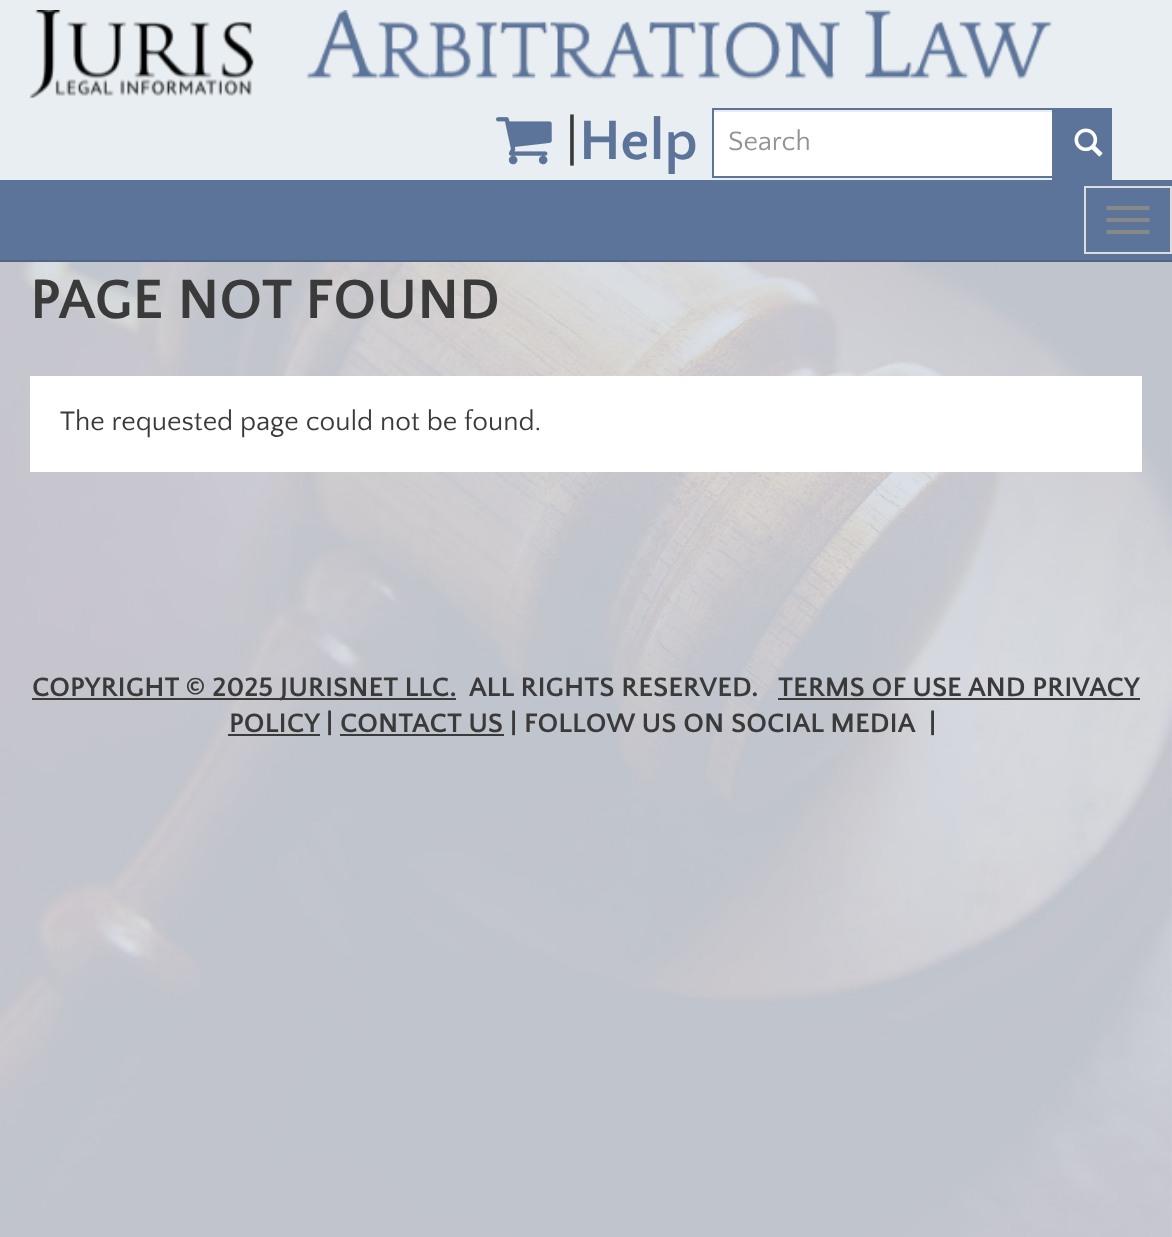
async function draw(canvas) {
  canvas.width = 1172
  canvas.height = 1237
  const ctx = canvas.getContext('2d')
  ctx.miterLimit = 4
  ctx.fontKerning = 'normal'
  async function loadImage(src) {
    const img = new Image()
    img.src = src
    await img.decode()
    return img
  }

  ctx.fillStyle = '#fff'
  ctx.fillRect(0, 0, 1172, 1237)
  ctx.drawImage(await loadImage('image0.png'), 0, 262, 1172, 975)
  ctx.fillStyle = '#e9eef2'
  ctx.fillRect(0, 0, 1172, 180)
  ctx.drawImage(await loadImage('image1.png'), 30, 10, 1022, 88)
  ctx.drawImage(await loadImage('image2.png'), 496, 117, 56, 48)
  ctx.font = '58px Quattrocento Sans'
  ctx.fillStyle = '#3a3a3a'
  ctx.fillText('|', 565, 159)
  ctx.font = 'bold 58px Quattrocento Sans'
  ctx.fillStyle = '#5c7499'
  ctx.fillText('Help', 579, 159)
  ctx.fillStyle = '#fff'
  ctx.fillRect(714, 112, 338, 64)
  ctx.fillStyle = '#ececec'
  ctx.fillRect(714, 110, 338, 2)
  ctx.fillStyle = '#5c7499'
  ctx.fillRect(1052, 108, 60, 72)
  ctx.strokeStyle = '#5c7499'
  ctx.lineWidth = 2
  ctx.strokeRect(713, 109, 340, 68)
  ctx.font = '28px Quattrocento Sans'
  ctx.fillStyle = '#939393'
  ctx.fillText('Search', 728, 150)
  ctx.drawImage(await loadImage('image3.png'), 1074, 128, 29, 29)
  ctx.fillStyle = '#5c7499'
  ctx.fillRect(0, 180, 1172, 80)
  ctx.fillStyle = '#506484'
  ctx.fillRect(0, 260, 1172, 2)
  ctx.strokeStyle = '#ddd'
  ctx.strokeRect(1085, 187, 86, 66)
  ctx.fillStyle = '#888'
  ctx.beginPath()
  ctx.roundRect(1106, 206, 44, 4, 2)
  ctx.fill()
  ctx.beginPath()
  ctx.roundRect(1106, 218, 44, 4, 2)
  ctx.fill()
  ctx.beginPath()
  ctx.roundRect(1106, 230, 44, 4, 2)
  ctx.fill()
  ctx.font = 'bold 58px Quattrocento Sans'
  ctx.fillStyle = '#3a3a3a'
  ctx.fillText('PAGE NOT FOUND', 30, 318)
  ctx.fillStyle = '#fff'
  ctx.fillRect(30, 376, 1112, 96)
  ctx.font = '28px Quattrocento Sans'
  ctx.fillStyle = '#3a3a3a'
  ctx.fillText('The requested page could not be found.', 60, 430)
  ctx.fillRect(32, 698, 424, 2)
  ctx.font = 'bold 28px Quattrocento Sans'
  ctx.fillText('COPYRIGHT © 2025 JURISNET LLC.', 32, 696)
  ctx.fillText('ALL RIGHTS RESERVED.', 469, 696)
  ctx.fillText('TERMS OF USE AND PRIVACY', 778, 696)
  ctx.fillRect(778, 698, 362, 2)
  ctx.fillText('POLICY', 229, 732)
  ctx.fillRect(228, 734, 92, 2)
  ctx.fillText('| CONTACT US | FOLLOW US ON SOCIAL MEDIA', 326, 732)
  ctx.fillText('|', 929, 732)
  ctx.fillRect(340, 734, 164, 2)
}

draw(document.querySelector('canvas'))
